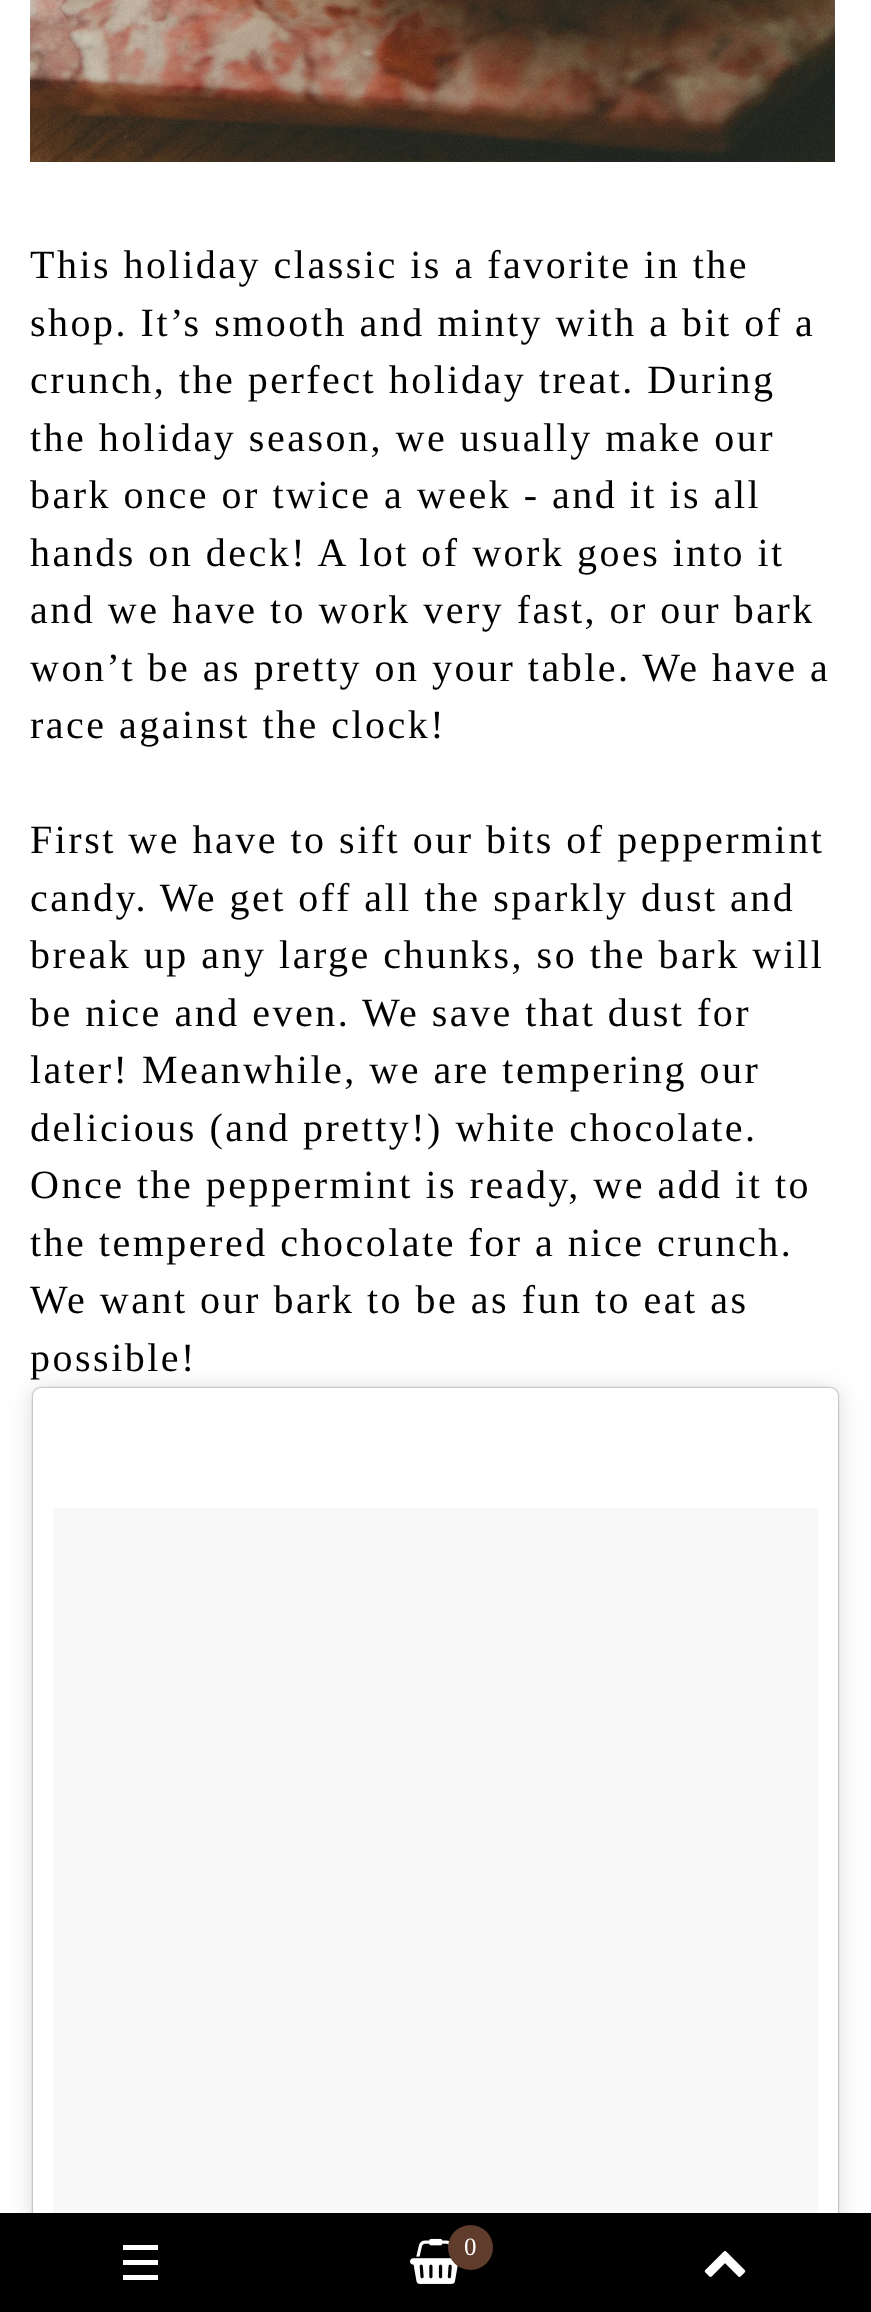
async function draw(canvas) {
  canvas.width = 871
  canvas.height = 2312
  const ctx = canvas.getContext('2d')
  ctx.miterLimit = 4
  ctx.fontKerning = 'normal'
  async function loadImage(src) {
    const img = new Image()
    img.src = src
    await img.decode()
    return img
  }

  ctx.fillStyle = '#fff'
  ctx.fillRect(0, 0, 871, 2312)
  ctx.drawImage(await loadImage('image0.png'), 30, 0, 805, 162)
  ctx.letterSpacing = '2.5px'
  ctx.font = '40px Liberation Serif'
  ctx.fillStyle = '#000'
  ctx.fillText('This holiday classic is a favorite in the', 30, 278)
  ctx.fillText('shop. It’s smooth and minty with a bit of a', 30, 336)
  ctx.fillText('crunch, the perfect holiday treat. During', 30, 393)
  ctx.fillText('the holiday season, we usually make our', 30, 451)
  ctx.fillText('bark once or twice a week - and it is all', 30, 508)
  ctx.fillText('hands on deck! A lot of work goes into it', 30, 566)
  ctx.fillText('and we have to work very fast, or our bark', 30, 623)
  ctx.fillText('won’t be as pretty on your table. We have a', 30, 681)
  ctx.fillText('race against the clock!', 30, 738)
  ctx.fillText('First we have to sift our bits of peppermint', 30, 853)
  ctx.fillText('candy. We get off all the sparkly dust and', 30, 911)
  ctx.fillText('break up any large chunks, so the bark will', 30, 968)
  ctx.fillText('be nice and even. We save that dust for', 30, 1026)
  ctx.fillText('later! Meanwhile, we are tempering our', 30, 1083)
  ctx.fillText('delicious (and pretty!) white chocolate.', 30, 1141)
  ctx.fillText('Once the peppermint is ready, we add it to', 30, 1198)
  ctx.fillText('the tempered chocolate for a nice crunch.', 30, 1256)
  ctx.fillText('We want our bark to be as fun to eat as', 30, 1313)
  ctx.fillStyle = '#00000026'
  ctx.filter = 'blur(12.5px)'
  ctx.beginPath()
  ctx.roundRect(33, 1390, 805, 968, 8)
  ctx.fill()
  ctx.filter = 'none'
  ctx.fillStyle = '#000'
  ctx.fillText('possible!', 30, 1371)
  ctx.fillStyle = '#00000080'
  ctx.filter = 'blur(1px)'
  ctx.beginPath()
  ctx.roundRect(33, 1388, 805, 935, 8)
  ctx.fill()
  ctx.filter = 'none'
  ctx.fillStyle = '#fff'
  ctx.beginPath()
  ctx.roundRect(33, 1388, 805, 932, 8)
  ctx.fill()
  ctx.fillStyle = '#f8f8f8'
  ctx.fillRect(53, 1508, 765, 705)
  ctx.fillStyle = '#000'
  ctx.fillRect(0, 2213, 583, 99)
  ctx.fillStyle = '#fff'
  ctx.fillRect(123, 2260, 35, 5)
  ctx.fillRect(123, 2245, 35, 5)
  ctx.fillRect(123, 2275, 35, 5)
  ctx.fillStyle = '#000'
  ctx.fillRect(583, 2213, 288, 99)
  ctx.drawImage(await loadImage('image1.png'), 704, 2251, 42, 26)
  ctx.drawImage(await loadImage('image2.png'), 410, 2238, 48, 46)
  ctx.fillStyle = '#603c2c'
  ctx.beginPath()
  ctx.arc(470.5, 2247.5, 22.5, 0, 2 * Math.PI)
  ctx.fill()
  ctx.font = '25px Liberation Serif'
  ctx.fillStyle = '#fff'
  ctx.fillText('0', 464, 2255)
}

draw(document.querySelector('canvas'))
